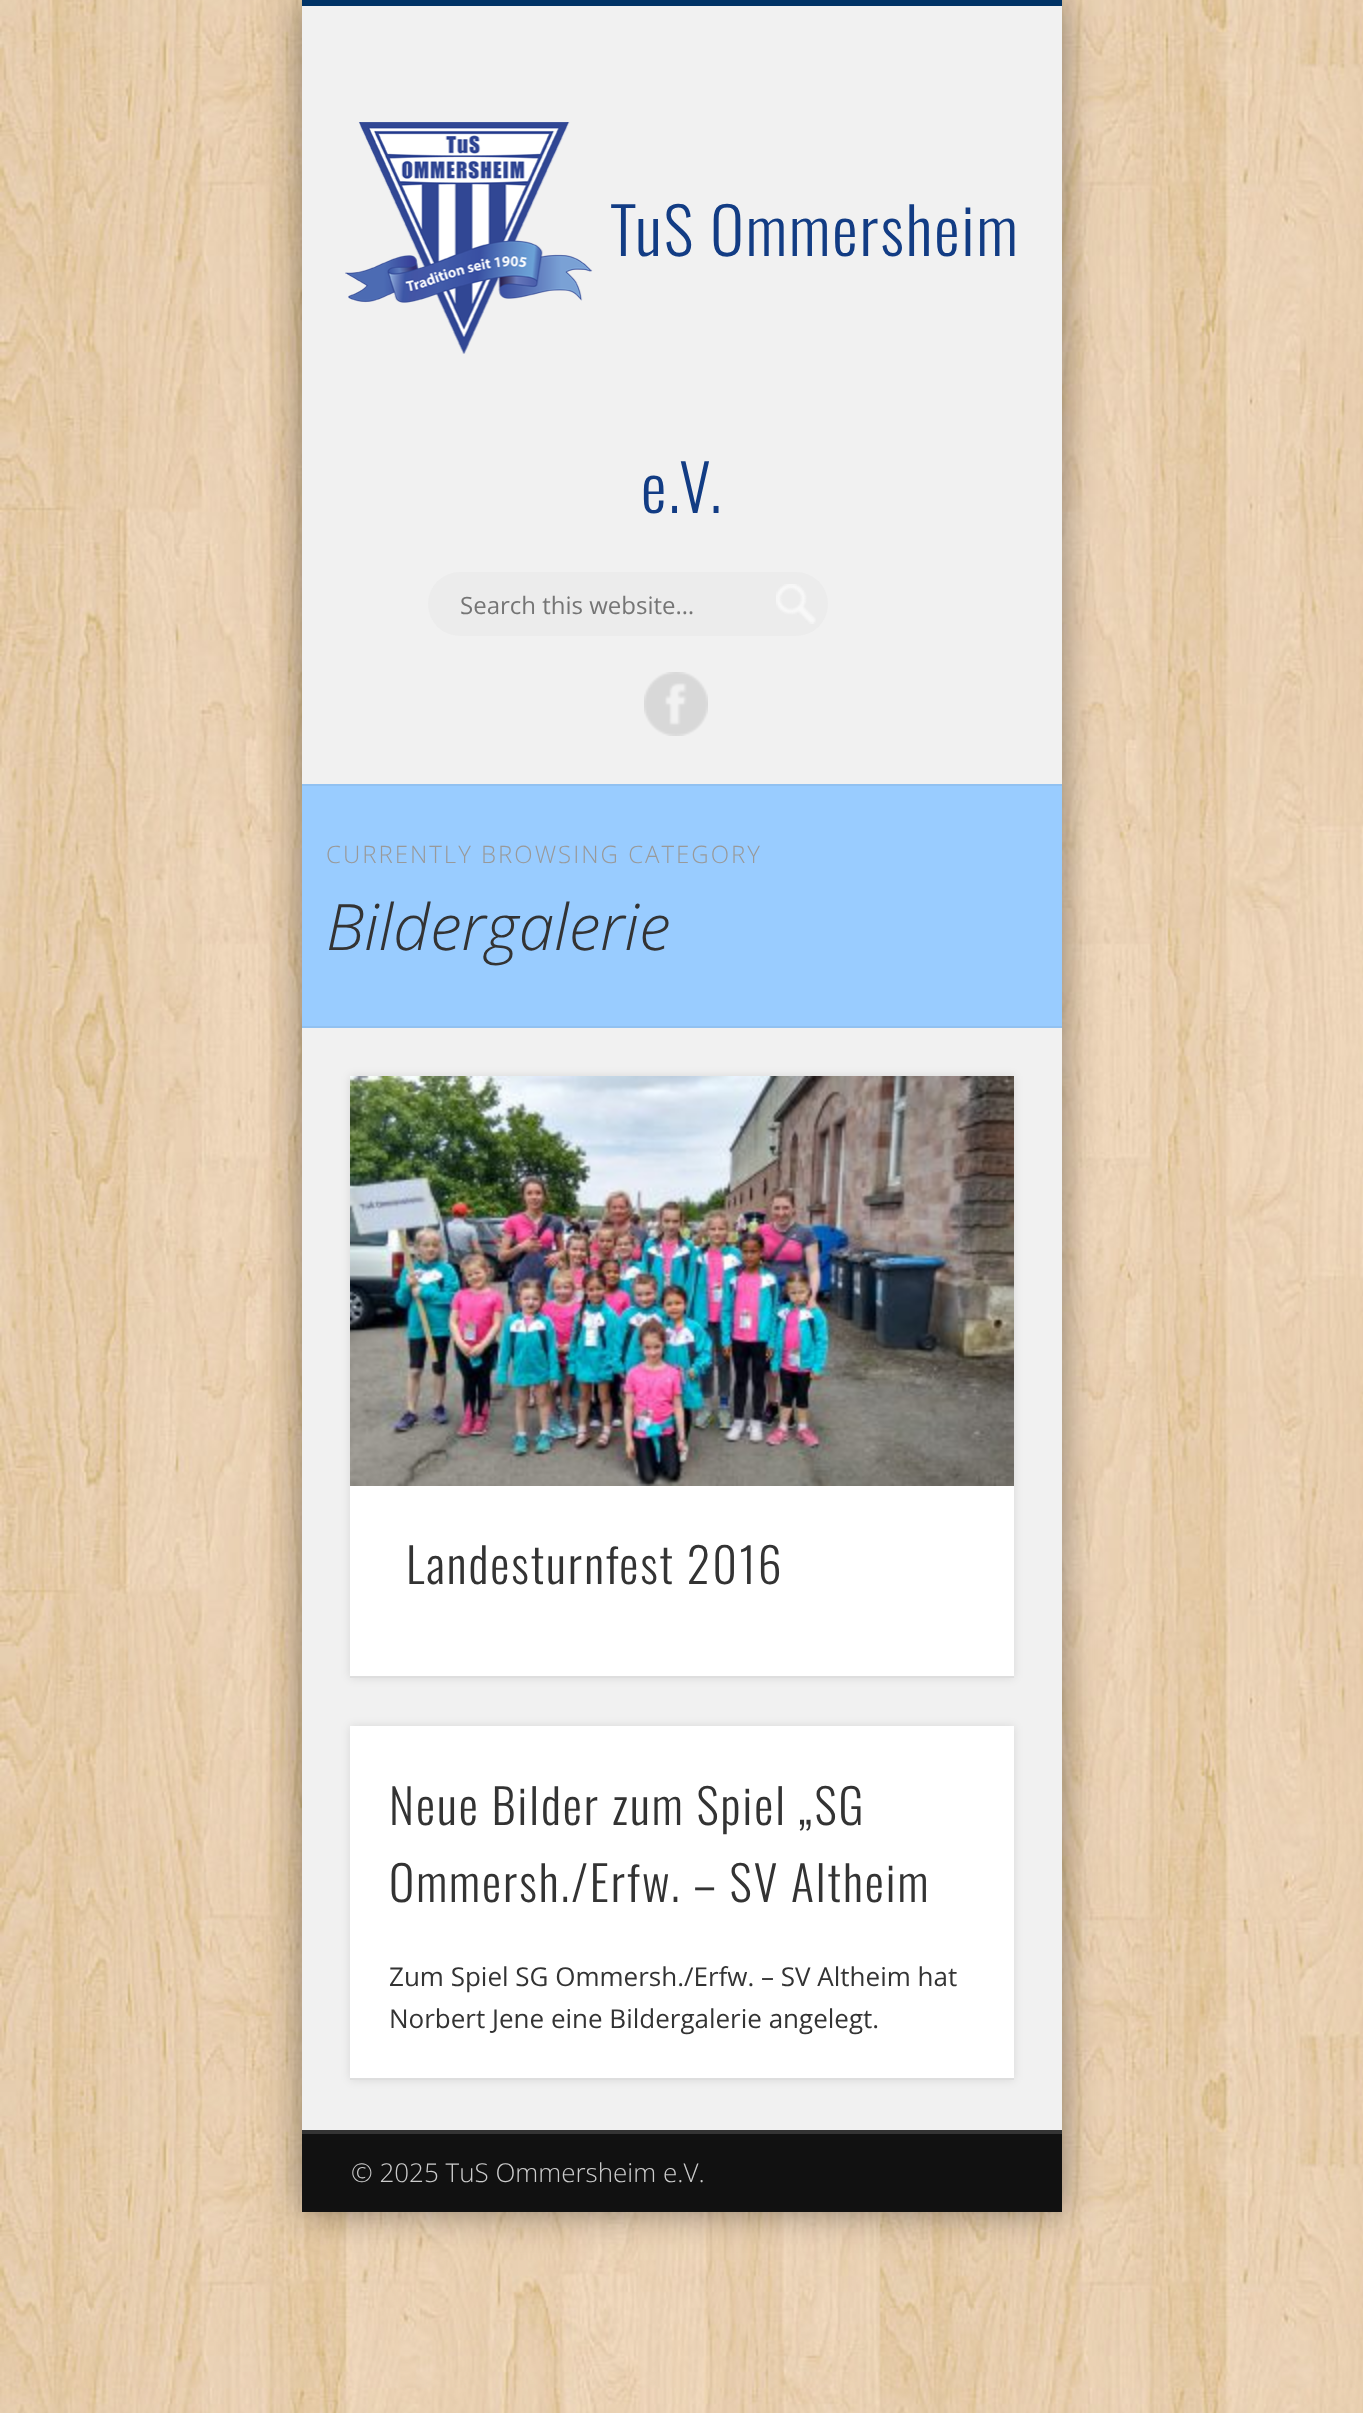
async function draw(canvas) {
  canvas.width = 1363
  canvas.height = 2413
  const ctx = canvas.getContext('2d')
  ctx.miterLimit = 4
  ctx.fontKerning = 'normal'
  async function loadImage(src) {
    const img = new Image()
    img.src = src
    await img.decode()
    return img
  }

  ctx.fillStyle = '#fff'
  ctx.fillRect(0, 0, 1363, 2413)
  ctx.drawImage(await loadImage('image0.png'), 0, 0, 1363, 2413)
  ctx.fillStyle = '#00000066'
  ctx.filter = 'blur(18px)'
  ctx.beginPath()
  ctx.rect(302, 0, 760, 2212)
  ctx.fill()
  ctx.filter = 'none'
  ctx.fillStyle = '#f1f1f1'
  ctx.fillRect(302, 6, 760, 2124)
  ctx.fillStyle = '#036'
  ctx.fillRect(302, 0, 760, 6)
  ctx.drawImage(await loadImage('image1.png'), 345, 122, 248, 232)
  ctx.letterSpacing = '2px'
  ctx.font = '300 64px Oswald'
  ctx.fillStyle = '#123c84'
  ctx.fillText('TuS Ommersheim', 610, 256)
  ctx.fillText('e.V.', 641, 513)
  ctx.fillStyle = '#ececec'
  ctx.beginPath()
  ctx.roundRect(428, 572, 400, 64, 32)
  ctx.fill()
  ctx.drawImage(await loadImage('image2.png'), 776, 584, 40, 40)
  ctx.letterSpacing = '0px'
  ctx.font = '24px Open Sans'
  ctx.fillStyle = '#757575'
  ctx.fillText('Search this website…', 460, 614)
  ctx.drawImage(await loadImage('image3.png'), 644, 672, 64, 64)
  ctx.fillStyle = '#9cf'
  ctx.fillRect(302, 786, 760, 240)
  ctx.fillStyle = '#91c1f1'
  ctx.fillRect(302, 784, 760, 2)
  ctx.fillRect(302, 1026, 760, 2)
  ctx.letterSpacing = '2px'
  ctx.font = '300 24px Open Sans'
  ctx.fillStyle = '#999'
  ctx.fillText('CURRENTLY BROWSING CATEGORY', 326, 863)
  ctx.letterSpacing = '0px'
  ctx.font = 'italic 300 64px Open Sans'
  ctx.fillStyle = '#333'
  ctx.fillText('Bildergalerie', 326, 950)
  ctx.fillStyle = '#0000001a'
  ctx.filter = 'blur(5px)'
  ctx.beginPath()
  ctx.rect(350, 1076, 664, 602)
  ctx.fill()
  ctx.filter = 'none'
  ctx.fillStyle = '#fff'
  ctx.fillRect(350, 1486, 664, 190)
  ctx.fillStyle = '#dedede'
  ctx.fillRect(350, 1676, 664, 2)
  ctx.drawImage(await loadImage('image4.png'), 350, 1076, 664, 410)
  ctx.letterSpacing = '2px'
  ctx.font = '300 48px Oswald'
  ctx.fillStyle = '#333'
  ctx.fillText('Landesturnfest 2016', 406, 1584)
  ctx.fillStyle = '#0000001a'
  ctx.filter = 'blur(5px)'
  ctx.beginPath()
  ctx.rect(350, 1726, 664, 354)
  ctx.fill()
  ctx.filter = 'none'
  ctx.fillStyle = '#fff'
  ctx.fillRect(350, 1726, 664, 352)
  ctx.fillStyle = '#dedede'
  ctx.fillRect(350, 2078, 664, 2)
  ctx.fillStyle = '#333'
  ctx.fillText('Neue Bilder zum Spiel „SG', 389, 1825)
  ctx.fillText('Ommersh./Erfw. – SV Altheim', 389, 1902)
  ctx.letterSpacing = '0px'
  ctx.font = '26px Open Sans'
  ctx.fillText('Zum Spiel SG Ommersh./Erfw. – SV Altheim hat', 389, 1986)
  ctx.fillText('Norbert Jene eine Bildergalerie angelegt.', 389, 2028)
  ctx.fillRect(302, 2130, 760, 2)
  ctx.fillStyle = '#111'
  ctx.fillRect(302, 2134, 760, 78)
  ctx.fillStyle = '#343434'
  ctx.fillRect(302, 2132, 760, 2)
  ctx.font = '300 26px Open Sans'
  ctx.fillStyle = '#ccc'
  ctx.fillText('© 2025 TuS Ommersheim e.V.', 351, 2182)
}

draw(document.querySelector('canvas'))
